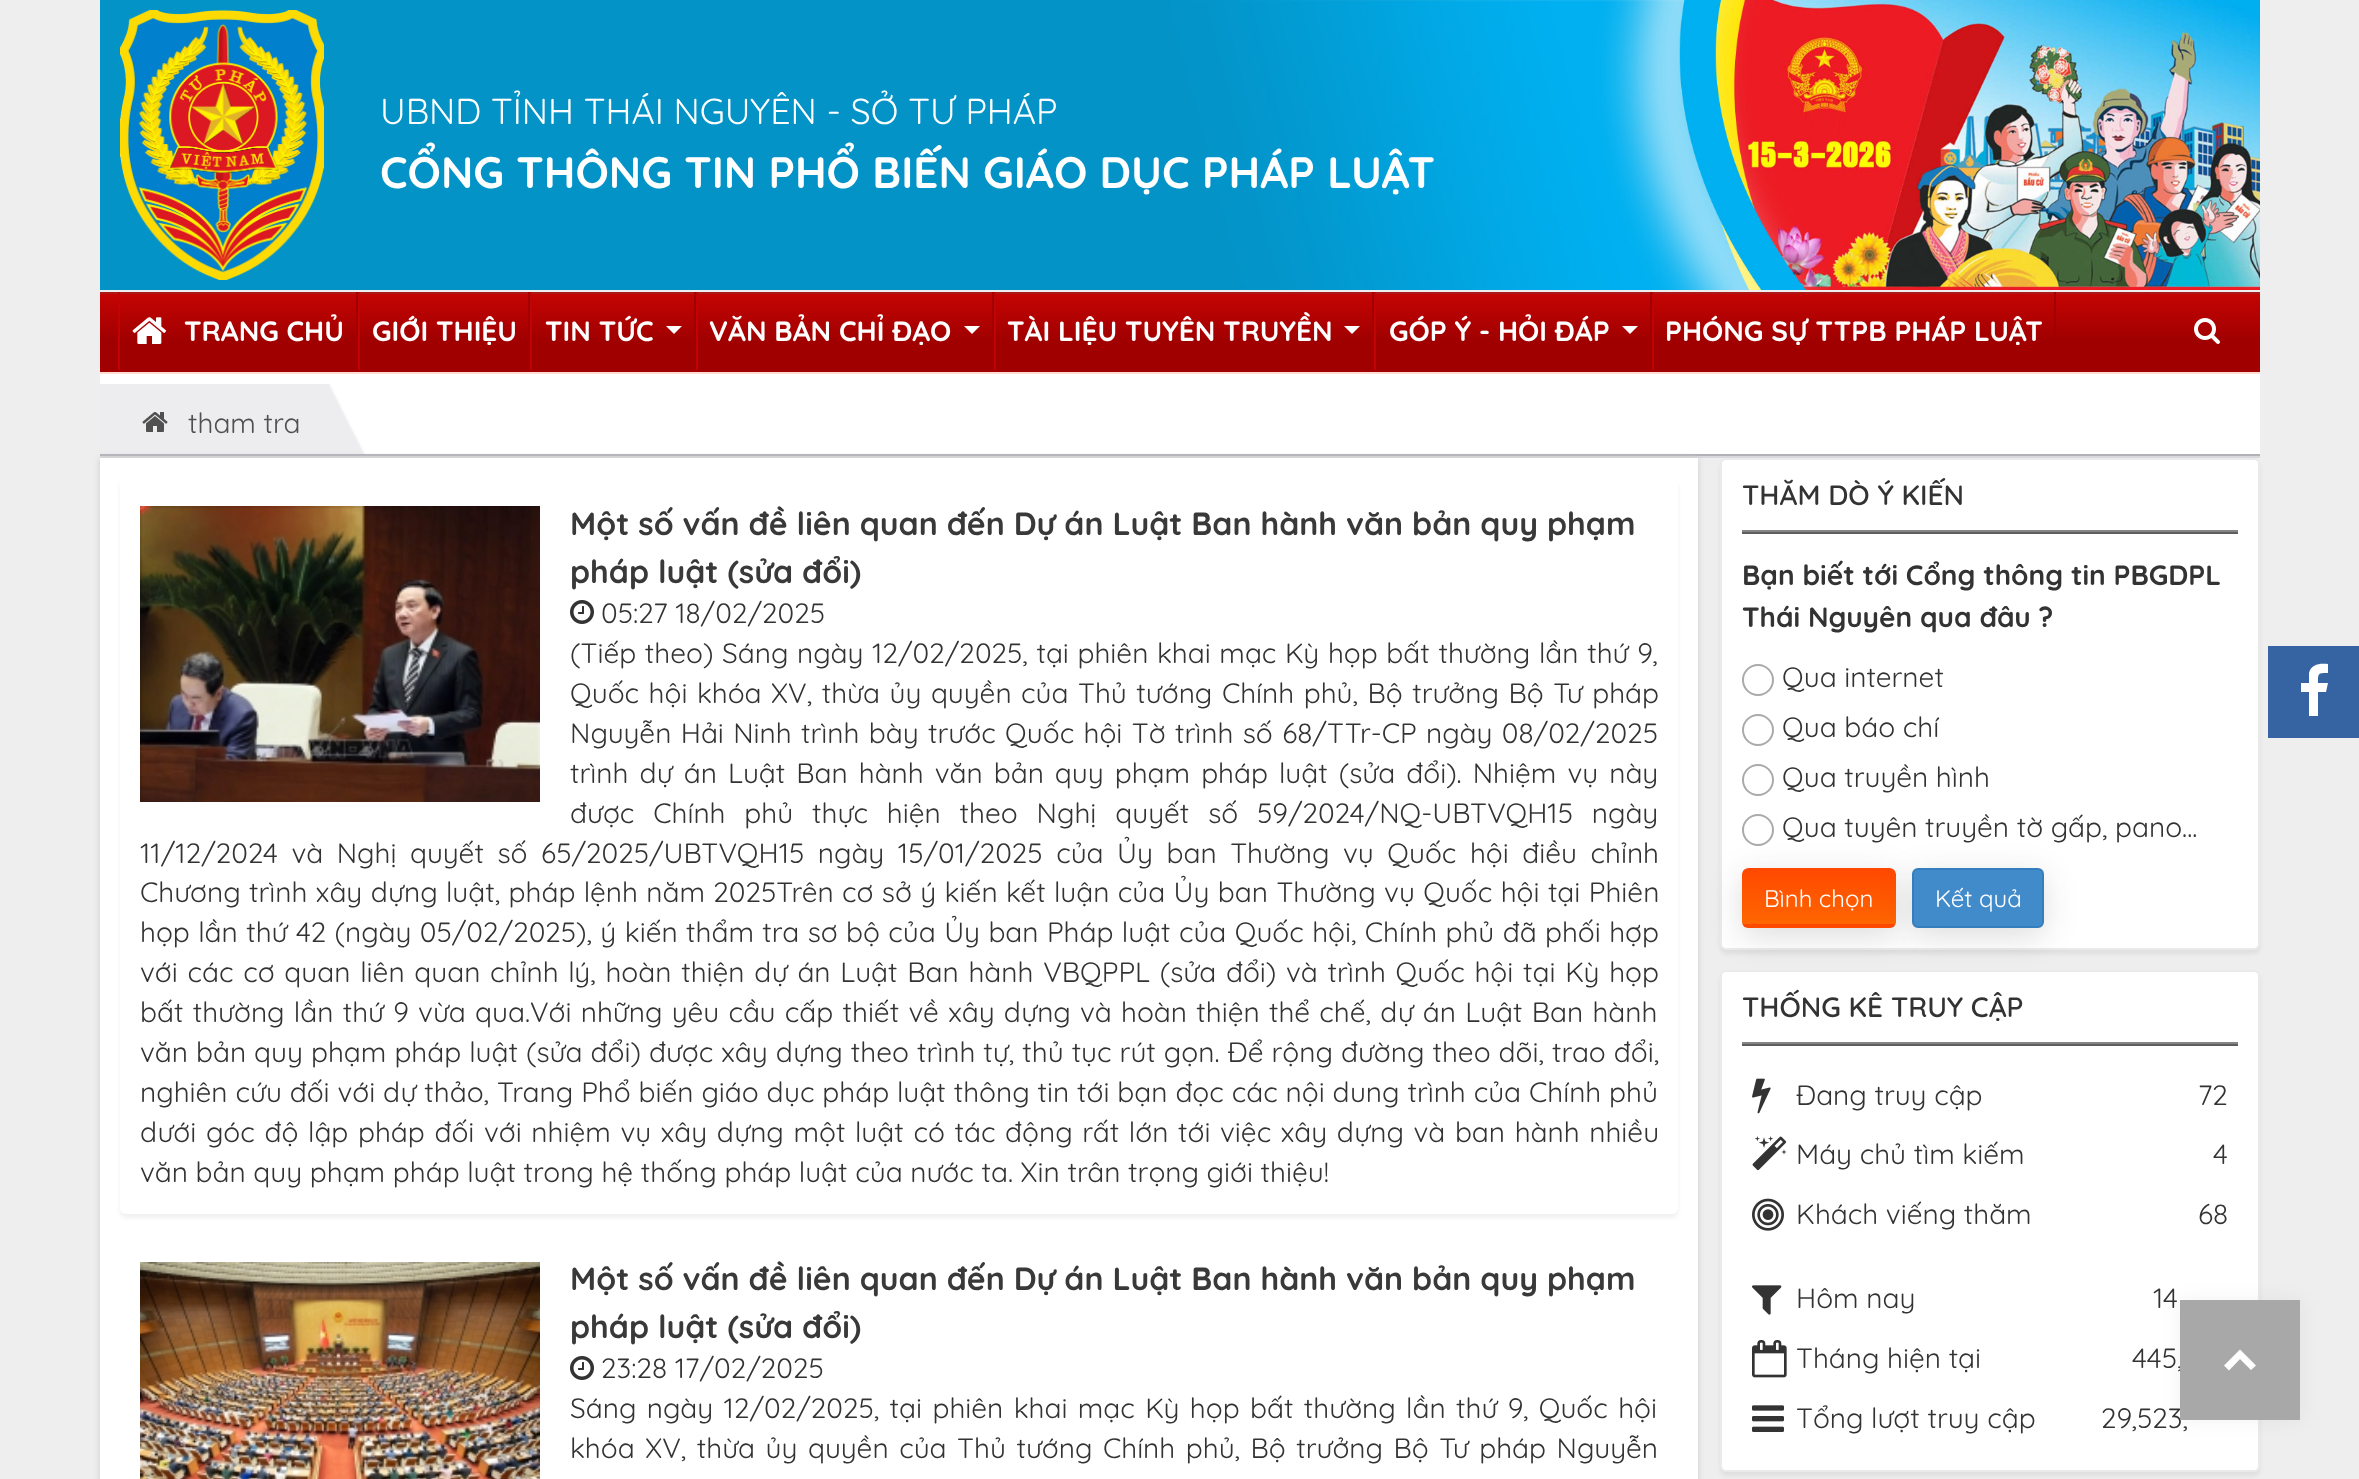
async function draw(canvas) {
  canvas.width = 2359
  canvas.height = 1479
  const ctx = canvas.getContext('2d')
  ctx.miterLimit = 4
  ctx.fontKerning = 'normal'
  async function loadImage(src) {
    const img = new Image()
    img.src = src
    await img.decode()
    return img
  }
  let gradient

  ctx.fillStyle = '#eee'
  ctx.fillRect(0, 0, 2359, 1479)
  ctx.drawImage(await loadImage('image0.png'), 100, 0, 2160, 290)
  ctx.drawImage(await loadImage('image1.png'), 120, 10, 204, 270)
  ctx.font = '36px Quicksand'
  ctx.fillStyle = '#fff'
  ctx.fillText('UBND TỈNH THÁI NGUYÊN - SỞ TƯ PHÁP', 380, 124)
  ctx.font = 'bold 44px Quicksand'
  ctx.fillText('CỔNG THÔNG TIN PHỔ BIẾN GIÁO DỤC PHÁP LUẬT', 380, 188)
  ctx.fillStyle = '#ffdcd2'
  ctx.fillRect(100, 372, 2160, 2)
  gradient = ctx.createLinearGradient(1180, 271, 1180, 372)
  gradient.addColorStop(0, '#d60605')
  gradient.addColorStop(0.69, '#a00000')
  ctx.fillStyle = gradient
  ctx.fillRect(100, 294, 2160, 78)
  ctx.fillStyle = '#aa1a1a'
  ctx.fillRect(100, 292, 2160, 2)
  ctx.fillStyle = '#a00000'
  ctx.fillRect(356, 292, 2, 45)
  ctx.fillStyle = '#c30202'
  ctx.fillRect(118, 292, 2, 78)
  ctx.drawImage(await loadImage('image2.png'), 132, 317, 35, 27)
  ctx.font = 'bold 28px Quicksand'
  ctx.fillStyle = '#fff'
  ctx.fillText('TRANG CHỦ', 184, 341)
  ctx.fillStyle = '#a00000'
  ctx.fillRect(528, 292, 2, 45)
  ctx.fillStyle = '#c30202'
  ctx.fillRect(358, 292, 2, 78)
  ctx.fillStyle = '#fff'
  ctx.fillText('GIỚI THIỆU', 372, 341)
  ctx.fillStyle = '#a00000'
  ctx.fillRect(694, 292, 2, 45)
  ctx.fillStyle = '#c30202'
  ctx.fillRect(530, 292, 2, 78)
  ctx.fillStyle = '#fff'
  ctx.fillText('TIN TỨC', 545, 341)
  ctx.beginPath()
  ctx.moveTo(666, 326)
  ctx.lineTo(682, 326)
  ctx.lineTo(674, 334)
  ctx.closePath()
  ctx.fill()
  ctx.fillStyle = '#a00000'
  ctx.fillRect(992, 292, 2, 45)
  ctx.fillStyle = '#c30202'
  ctx.fillRect(696, 292, 2, 78)
  ctx.fillStyle = '#fff'
  ctx.fillText('VĂN BẢN CHỈ ĐẠO', 709, 341)
  ctx.beginPath()
  ctx.moveTo(964, 326)
  ctx.lineTo(980, 326)
  ctx.lineTo(972, 334)
  ctx.closePath()
  ctx.fill()
  ctx.fillStyle = '#a00000'
  ctx.fillRect(1372, 292, 2, 45)
  ctx.fillStyle = '#c30202'
  ctx.fillRect(994, 292, 2, 78)
  ctx.fillStyle = '#fff'
  ctx.fillText('TÀI LIỆU TUYÊN TRUYỀN', 1007, 341)
  ctx.beginPath()
  ctx.moveTo(1344, 326)
  ctx.lineTo(1360, 326)
  ctx.lineTo(1352, 334)
  ctx.closePath()
  ctx.fill()
  ctx.fillStyle = '#a00000'
  ctx.fillRect(1650, 292, 2, 45)
  ctx.fillStyle = '#c30202'
  ctx.fillRect(1374, 292, 2, 78)
  ctx.fillStyle = '#fff'
  ctx.fillText('GÓP Ý - HỎI ĐÁP', 1389, 341)
  ctx.beginPath()
  ctx.moveTo(1622, 326)
  ctx.lineTo(1638, 326)
  ctx.lineTo(1630, 334)
  ctx.closePath()
  ctx.fill()
  ctx.fillStyle = '#a00000'
  ctx.fillRect(2054, 292, 2, 45)
  ctx.fillStyle = '#c30202'
  ctx.fillRect(1652, 292, 2, 78)
  ctx.fillStyle = '#fff'
  ctx.fillText('PHÓNG SỰ TTPB PHÁP LUẬT', 1665, 341)
  ctx.drawImage(await loadImage('image3.png'), 2194, 318, 26, 26)
  ctx.fillStyle = '#d9d9dd'
  ctx.fillRect(100, 456, 2160, 2)
  ctx.fillStyle = '#fff'
  ctx.fillRect(100, 374, 2160, 80)
  ctx.fillStyle = '#b1b1b8'
  ctx.fillRect(100, 454, 2160, 2)
  ctx.drawImage(await loadImage('image4.png'), 328, 384, 37, 70)
  ctx.fillStyle = '#ededef'
  ctx.fillRect(100, 384, 228, 70)
  ctx.drawImage(await loadImage('image5.png'), 142, 412, 26, 20)
  ctx.font = '28px Quicksand'
  ctx.fillStyle = '#515050'
  ctx.fillText('tham tra', 188, 433)
  ctx.fillStyle = '#ccc'
  ctx.filter = 'blur(3px)'
  ctx.beginPath()
  ctx.rect(100, 458, 1598, 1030)
  ctx.fill()
  ctx.filter = 'none'
  ctx.fillStyle = '#fff'
  ctx.fillRect(100, 458, 1598, 1021)
  ctx.fillStyle = '#0000000f'
  ctx.filter = 'blur(2px)'
  ctx.beginPath()
  ctx.roundRect(120, 482, 1558, 736, 6)
  ctx.fill()
  ctx.filter = 'none'
  ctx.fillStyle = '#fff'
  ctx.beginPath()
  ctx.roundRect(120, 478, 1558, 736, 6)
  ctx.fill()
  ctx.drawImage(await loadImage('image6.png'), 140, 506, 400, 296)
  ctx.font = 'bold 32px Quicksand'
  ctx.fillStyle = '#393939'
  ctx.fillText('Một số vấn đề liên quan đến Dự án Luật Ban hành văn bản quy phạm', 570, 535)
  ctx.fillText('pháp luật (sửa đổi)', 570, 583)
  ctx.drawImage(await loadImage('image7.png'), 570, 600, 24, 24)
  ctx.font = '28px Quicksand'
  ctx.fillStyle = '#333'
  ctx.fillText('05:27 18/02/2025', 601, 623)
  ctx.wordSpacing = '1px'
  ctx.fillText('(Tiếp theo) Sáng ngày 12/02/2025, tại phiên khai mạc Kỳ họp bất thường lần thứ 9,', 570, 663)
  ctx.wordSpacing = '1.9px'
  ctx.fillText('Quốc hội khóa XV, thừa ủy quyền của Thủ tướng Chính phủ, Bộ trưởng Bộ Tư pháp', 570, 703)
  ctx.wordSpacing = '1.75px'
  ctx.fillText('Nguyễn Hải Ninh trình bày trước Quốc hội Tờ trình số 68/TTr-CP ngày 08/02/2025', 570, 743)
  ctx.wordSpacing = '3.4px'
  ctx.fillText('trình dự án Luật Ban hành văn bản quy phạm pháp luật (sửa đổi). Nhiệm vụ này', 570, 783)
  ctx.wordSpacing = '11.25px'
  ctx.fillText('được Chính phủ thực hiện theo Nghị quyết số 59/2024/NQ-UBTVQH15 ngày', 570, 823)
  ctx.wordSpacing = '5.9px'
  ctx.fillText('11/12/2024 và Nghị quyết số 65/2025/UBTVQH15 ngày 15/01/2025 của Ủy ban Thường vụ Quốc hội điều chỉnh', 140, 863)
  ctx.wordSpacing = '0.75px'
  ctx.fillText('Chương trình xây dựng luật, pháp lệnh năm 2025Trên cơ sở ý kiến kết luận của Ủy ban Thường vụ Quốc hội tại Phiên', 140, 902)
  ctx.fillText('họp lần thứ 42 (ngày 05/02/2025), ý kiến thẩm tra sơ bộ của Ủy ban Pháp luật của Quốc hội, Chính phủ đã phối hợp', 140, 942)
  ctx.wordSpacing = '2.1px'
  ctx.fillText('với các cơ quan liên quan chỉnh lý, hoàn thiện dự án Luật Ban hành VBQPPL (sửa đổi) và trình Quốc hội tại Kỳ họp', 140, 982)
  ctx.wordSpacing = '1.6px'
  ctx.fillText('bất thường lần thứ 9 vừa qua.Với những yêu cầu cấp thiết về xây dựng và hoàn thiện thể chế, dự án Luật Ban hành', 140, 1022)
  ctx.wordSpacing = '0.4px'
  ctx.fillText('văn bản quy phạm pháp luật (sửa đổi) được xây dựng theo trình tự, thủ tục rút gọn. Để rộng đường theo dõi, trao đổi,', 140, 1062)
  ctx.wordSpacing = '0.25px'
  ctx.fillText('nghiên cứu đối với dự thảo, Trang Phổ biến giáo dục pháp luật thông tin tới bạn đọc các nội dung trình của Chính phủ', 140, 1102)
  ctx.wordSpacing = '2px'
  ctx.fillText('dưới góc độ lập pháp đối với nhiệm vụ xây dựng một luật có tác động rất lớn tới việc xây dựng và ban hành nhiều', 140, 1142)
  ctx.wordSpacing = '0px'
  ctx.fillText('văn bản quy phạm pháp luật trong hệ thống pháp luật của nước ta. Xin trân trọng giới thiệu!', 140, 1182)
  ctx.drawImage(await loadImage('image8.png'), 140, 1262, 400, 217)
  ctx.font = 'bold 32px Quicksand'
  ctx.fillStyle = '#393939'
  ctx.fillText('Một số vấn đề liên quan đến Dự án Luật Ban hành văn bản quy phạm', 570, 1290)
  ctx.fillText('pháp luật (sửa đổi)', 570, 1338)
  ctx.drawImage(await loadImage('image7.png'), 570, 1356, 24, 24)
  ctx.font = '28px Quicksand'
  ctx.fillStyle = '#333'
  ctx.fillText('23:28 17/02/2025', 601, 1378)
  ctx.wordSpacing = '2.75px'
  ctx.fillText('Sáng ngày 12/02/2025, tại phiên khai mạc Kỳ họp bất thường lần thứ 9, Quốc hội', 570, 1418)
  ctx.wordSpacing = '2.9px'
  ctx.fillText('khóa XV, thừa ủy quyền của Thủ tướng Chính phủ, Bộ trưởng Bộ Tư pháp Nguyễn', 570, 1458)
  ctx.fillStyle = '#0000000f'
  ctx.filter = 'blur(2px)'
  ctx.beginPath()
  ctx.roundRect(1720, 462, 540, 492, 6)
  ctx.fill()
  ctx.filter = 'none'
  ctx.fillStyle = '#fff'
  ctx.beginPath()
  ctx.roundRect(1721, 459, 538, 490, 5)
  ctx.fill()
  ctx.strokeStyle = '#eaeaea'
  ctx.lineWidth = 2
  ctx.stroke()
  ctx.fillStyle = '#5e5e5d'
  ctx.fillRect(1742, 532, 496, 2)
  ctx.fillStyle = '#868686'
  ctx.fillRect(1742, 530, 496, 2)
  ctx.wordSpacing = '0px'
  ctx.font = '600 28px Quicksand'
  ctx.fillStyle = '#333'
  ctx.fillText('THĂM DÒ Ý KIẾN', 1742, 505)
  ctx.font = 'bold 28px Quicksand'
  ctx.fillText('Bạn biết tới Cổng thông tin PBGDPL', 1742, 585)
  ctx.fillText('Thái Nguyên qua đâu ?', 1742, 627)
  ctx.beginPath()
  ctx.arc(1758, 680, 15, 0, 2 * Math.PI)
  ctx.strokeStyle = '#aaa'
  ctx.stroke()
  ctx.font = '28px Quicksand'
  ctx.fillText('Qua internet', 1782, 687)
  ctx.beginPath()
  ctx.arc(1758, 730, 15, 0, 2 * Math.PI)
  ctx.stroke()
  ctx.fillText('Qua báo chí', 1782, 737)
  ctx.beginPath()
  ctx.arc(1758, 780, 15, 0, 2 * Math.PI)
  ctx.stroke()
  ctx.fillText('Qua truyền hình', 1782, 787)
  ctx.beginPath()
  ctx.arc(1758, 830, 15, 0, 2 * Math.PI)
  ctx.stroke()
  ctx.fillText('Qua tuyên truyền tờ gấp, pano...', 1782, 837)
  ctx.fillStyle = '#0000000f'
  ctx.filter = 'blur(2px)'
  ctx.beginPath()
  ctx.roundRect(1720, 974, 540, 502, 6)
  ctx.fill()
  ctx.filter = 'none'
  ctx.fillStyle = '#fff'
  ctx.beginPath()
  ctx.roundRect(1721, 971, 538, 500, 5)
  ctx.fill()
  ctx.strokeStyle = '#eaeaea'
  ctx.stroke()
  ctx.fillStyle = '#1c1c2126'
  ctx.filter = 'blur(16px)'
  ctx.beginPath()
  ctx.roundRect(1742, 876, 154, 60, 6)
  ctx.fill()
  ctx.filter = 'none'
  ctx.save()
  ctx.beginPath()
  ctx.roundRect(1742, 868, 154, 60, 6)
  ctx.clip()
  gradient = ctx.createLinearGradient(1819, 868, 1819, 924)
  gradient.addColorStop(0, '#ff4800')
  gradient.addColorStop(1, '#f60')
  ctx.fillStyle = gradient
  ctx.beginPath()
  ctx.roundRect(1742, 868, 154, 56, [6, 6, 0, 0])
  ctx.fill()
  gradient = ctx.createLinearGradient(1819, 924, 1819, 980)
  gradient.addColorStop(0, '#ff4800')
  gradient.addColorStop(1, '#f60')
  ctx.fillStyle = gradient
  ctx.fillRect(1742, 924, 154, 4)
  ctx.restore()
  ctx.font = '24px Quicksand'
  ctx.fillStyle = '#fff'
  ctx.fillText('Bình chọn', 1764, 907)
  ctx.fillStyle = '#1c1c2126'
  ctx.filter = 'blur(16px)'
  ctx.beginPath()
  ctx.roundRect(1912, 876, 132, 60, 6)
  ctx.fill()
  ctx.filter = 'none'
  ctx.fillStyle = '#428bca'
  ctx.beginPath()
  ctx.roundRect(1913, 869, 130, 58, 5)
  ctx.fill()
  ctx.strokeStyle = '#357ebd'
  ctx.stroke()
  ctx.fillStyle = '#fff'
  ctx.fillText('Kết quả', 1935, 907)
  ctx.fillStyle = '#5e5e5d'
  ctx.fillRect(1742, 1044, 496, 2)
  ctx.fillStyle = '#868686'
  ctx.fillRect(1742, 1042, 496, 2)
  ctx.font = '600 28px Quicksand'
  ctx.fillStyle = '#333'
  ctx.fillText('THỐNG KÊ TRUY CẬP', 1742, 1017)
  ctx.drawImage(await loadImage('image9.png'), 1752, 1078, 19, 36)
  ctx.font = '28px Quicksand'
  ctx.fillText('Đang truy cập', 1796, 1105)
  ctx.fillText('72', 2198, 1105)
  ctx.drawImage(await loadImage('image10.png'), 1752, 1136, 35, 35)
  ctx.fillText('Máy chủ tìm kiếm', 1796, 1164)
  ctx.fillText('4', 2213, 1164)
  ctx.drawImage(await loadImage('image11.png'), 1752, 1198, 32, 33)
  ctx.fillText('Khách viếng thăm', 1796, 1224)
  ctx.fillText('68', 2198, 1224)
  ctx.drawImage(await loadImage('image12.png'), 1752, 1285, 30, 30)
  ctx.fillText('Hôm nay', 1796, 1308)
  ctx.fillText('14', 2153, 1308)
  ctx.drawImage(await loadImage('image13.png'), 1752, 1340, 35, 38)
  ctx.fillText('Tháng hiện tại', 1796, 1368)
  ctx.fillText('445,', 2132, 1368)
  ctx.drawImage(await loadImage('image14.png'), 1752, 1405, 32, 27)
  ctx.fillText('Tổng lượt truy cập', 1796, 1428)
  ctx.fillText('29,523,', 2101, 1428)
  ctx.fillStyle = '#0000000d'
  ctx.filter = 'blur(10px)'
  ctx.beginPath()
  ctx.rect(2180, 1300, 120, 120)
  ctx.fill()
  ctx.filter = 'none'
  ctx.fillStyle = '#a8a8a8'
  ctx.fillRect(2180, 1300, 120, 120)
  ctx.fillStyle = '#fff'
  ctx.beginPath()
  ctx.moveTo(2240, 1349.5)
  ctx.lineTo(2256, 1365.5)
  ctx.lineTo(2251, 1370)
  ctx.lineTo(2240, 1359)
  ctx.lineTo(2229, 1370.5)
  ctx.lineTo(2224, 1365.5)
  ctx.closePath()
  ctx.fill()
  ctx.fillStyle = '#3664a2'
  ctx.fillRect(2268, 646, 91, 92)
  ctx.fillStyle = '#fff'
  ctx.beginPath()
  ctx.moveTo(2328, 664)
  ctx.lineTo(2328, 673)
  ctx.bezierCurveTo(2318, 673, 2318, 673, 2318, 683)
  ctx.lineTo(2328, 683)
  ctx.lineTo(2326, 692)
  ctx.lineTo(2318, 692)
  ctx.lineTo(2318, 716)
  ctx.lineTo(2309, 716)
  ctx.lineTo(2309, 692)
  ctx.lineTo(2301, 692)
  ctx.lineTo(2301, 683)
  ctx.lineTo(2309, 683)
  ctx.lineTo(2309, 673)
  ctx.bezierCurveTo(2311, 664, 2320, 663, 2328, 664)
  ctx.closePath()
  ctx.fill()
}

draw(document.querySelector('canvas'))
